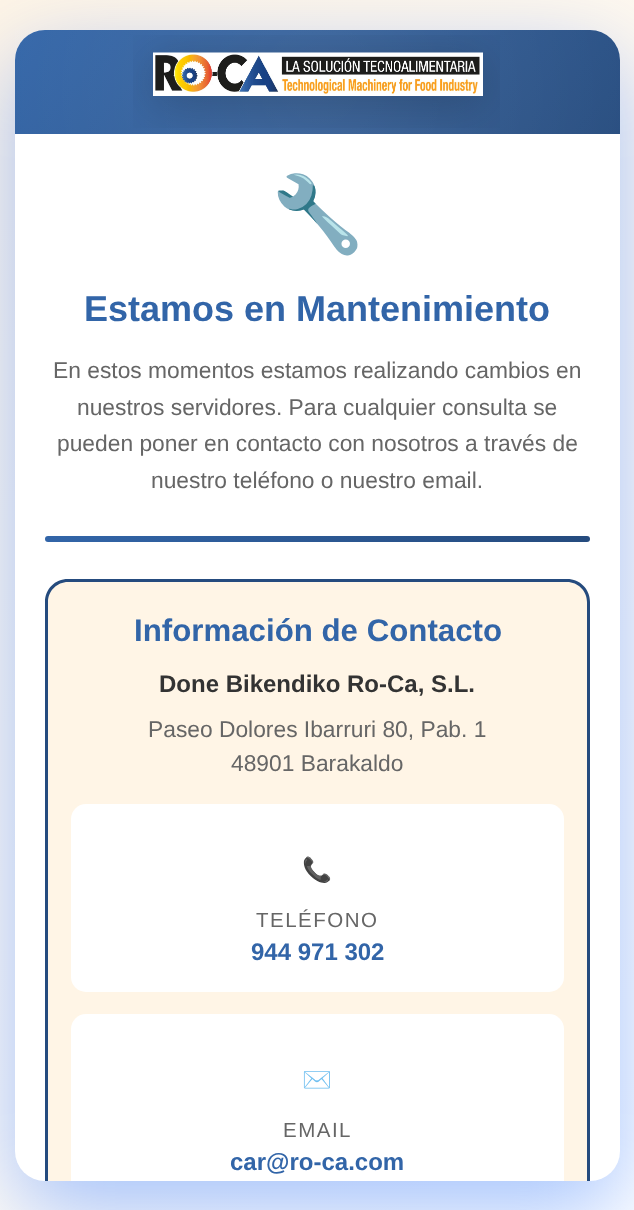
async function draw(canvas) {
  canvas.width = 634
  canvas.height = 1210
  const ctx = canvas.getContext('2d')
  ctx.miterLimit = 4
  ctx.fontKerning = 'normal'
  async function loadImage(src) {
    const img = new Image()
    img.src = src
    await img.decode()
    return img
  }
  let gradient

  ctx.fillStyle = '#fff'
  ctx.fillRect(0, 0, 634, 1210)
  gradient = ctx.createLinearGradient(-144, 144, 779, 1067)
  gradient.addColorStop(0, '#fff5e6')
  gradient.addColorStop(1, '#fff')
  ctx.fillStyle = gradient
  ctx.fillRect(0, 0, 634, 1210)
  ctx.fillStyle = '#0059ff5c'
  ctx.filter = 'blur(45px)'
  ctx.beginPath()
  ctx.roundRect(15, 60, 605, 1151, 30)
  ctx.fill()
  ctx.filter = 'none'
  ctx.fillStyle = '#fff'
  ctx.beginPath()
  ctx.roundRect(15, 30, 605, 1151, 30)
  ctx.fill()
  gradient = ctx.createLinearGradient(140, -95, 494, 259)
  gradient.addColorStop(0, '#3265a8')
  gradient.addColorStop(1, '#254b7e')
  ctx.fillStyle = gradient
  ctx.beginPath()
  ctx.roundRect(15, 30, 605, 104, [30, 30, 0, 0])
  ctx.fill()
  gradient = ctx.createRadialGradient(318, 83, 0, 318, 83, 613)
  gradient.addColorStop(0, '#ffffff1a')
  gradient.addColorStop(0.7, '#ffffff00')
  ctx.fillStyle = gradient
  ctx.fillRect(15, 30, 605, 104)
  ctx.drawImage(await loadImage('image0.png'), 133, 35, 367, 93)
  ctx.font = '75px Noto Color Emoji'
  ctx.fillStyle = '#333'
  ctx.fillText('🔧', 271, 240)
  ctx.font = 'bold 36px Liberation Sans'
  ctx.fillStyle = '#3265a8'
  ctx.fillText('Estamos en Mantenimiento', 84, 321)
  ctx.font = '22.8px Liberation Sans'
  ctx.fillStyle = '#666'
  ctx.fillText('En estos momentos estamos realizando cambios en', 53, 378)
  ctx.fillText('nuestros servidores. Para cualquier consulta se', 77, 415)
  ctx.fillText('pueden poner en contacto con nosotros a través de', 57, 451)
  ctx.fillText('nuestro teléfono o nuestro email.', 151, 488)
  gradient = ctx.createLinearGradient(45, 539, 590, 539)
  gradient.addColorStop(0, '#3265a8')
  gradient.addColorStop(1, '#254b7e')
  ctx.fillStyle = gradient
  ctx.beginPath()
  ctx.roundRect(45, 536, 545, 6, 3)
  ctx.fill()
  ctx.fillStyle = '#fff5e6'
  ctx.beginPath()
  ctx.roundRect(45, 579, 545, 602, [23, 23, 0, 0])
  ctx.fill()
  ctx.fillStyle = '#254b7e'
  ctx.beginPath()
  ctx.moveTo(68, 579)
  ctx.bezierCurveTo(55, 579, 45, 589, 45, 602)
  ctx.lineTo(45, 1181)
  ctx.lineTo(48, 1181)
  ctx.lineTo(48, 602)
  ctx.bezierCurveTo(48, 591, 57, 582, 68, 582)
  ctx.lineTo(567, 582)
  ctx.bezierCurveTo(578, 582, 587, 591, 587, 602)
  ctx.lineTo(587, 1181)
  ctx.lineTo(590, 1181)
  ctx.lineTo(590, 602)
  ctx.bezierCurveTo(590, 589, 580, 579, 567, 579)
  ctx.closePath()
  ctx.fill()
  ctx.font = 'bold 31.25px Liberation Sans'
  ctx.fillStyle = '#3265a8'
  ctx.fillText('Información de Contacto', 134, 641)
  ctx.font = 'bold 24px Liberation Sans'
  ctx.fillStyle = '#333'
  ctx.fillText('Done Bikendiko Ro-Ca, S.L.', 159, 692)
  ctx.font = '22.8px Liberation Sans'
  ctx.fillStyle = '#666'
  ctx.fillText('Paseo Dolores Ibarruri 80, Pab. 1', 148, 737)
  ctx.fillText('48901 Barakaldo', 231, 771)
  ctx.fillStyle = '#fff'
  ctx.beginPath()
  ctx.roundRect(71, 804, 493, 188, 15)
  ctx.fill()
  ctx.font = '24px Noto Color Emoji'
  ctx.fillStyle = '#333'
  ctx.fillText('📞', 302, 878)
  ctx.letterSpacing = '1.5px'
  ctx.font = '20.5px Liberation Sans'
  ctx.fillStyle = '#666'
  ctx.fillText('TELÉFONO', 256, 927)
  ctx.letterSpacing = '0px'
  ctx.font = 'bold 24px Liberation Sans'
  ctx.fillStyle = '#3265a8'
  ctx.fillText('944 971 302', 251, 960)
  ctx.fillStyle = '#fff'
  ctx.beginPath()
  ctx.roundRect(71, 1014, 493, 167, [15, 15, 0, 0])
  ctx.fill()
  ctx.font = '24px Noto Color Emoji'
  ctx.fillStyle = '#333'
  ctx.fillText('✉️', 302, 1088)
  ctx.letterSpacing = '1.5px'
  ctx.font = '20.5px Liberation Sans'
  ctx.fillStyle = '#666'
  ctx.fillText('EMAIL', 283, 1137)
  ctx.letterSpacing = '0px'
  ctx.font = 'bold 24px Liberation Sans'
  ctx.fillStyle = '#3265a8'
  ctx.fillText('car@ro-ca.com', 230, 1170)
}

draw(document.querySelector('canvas'))
